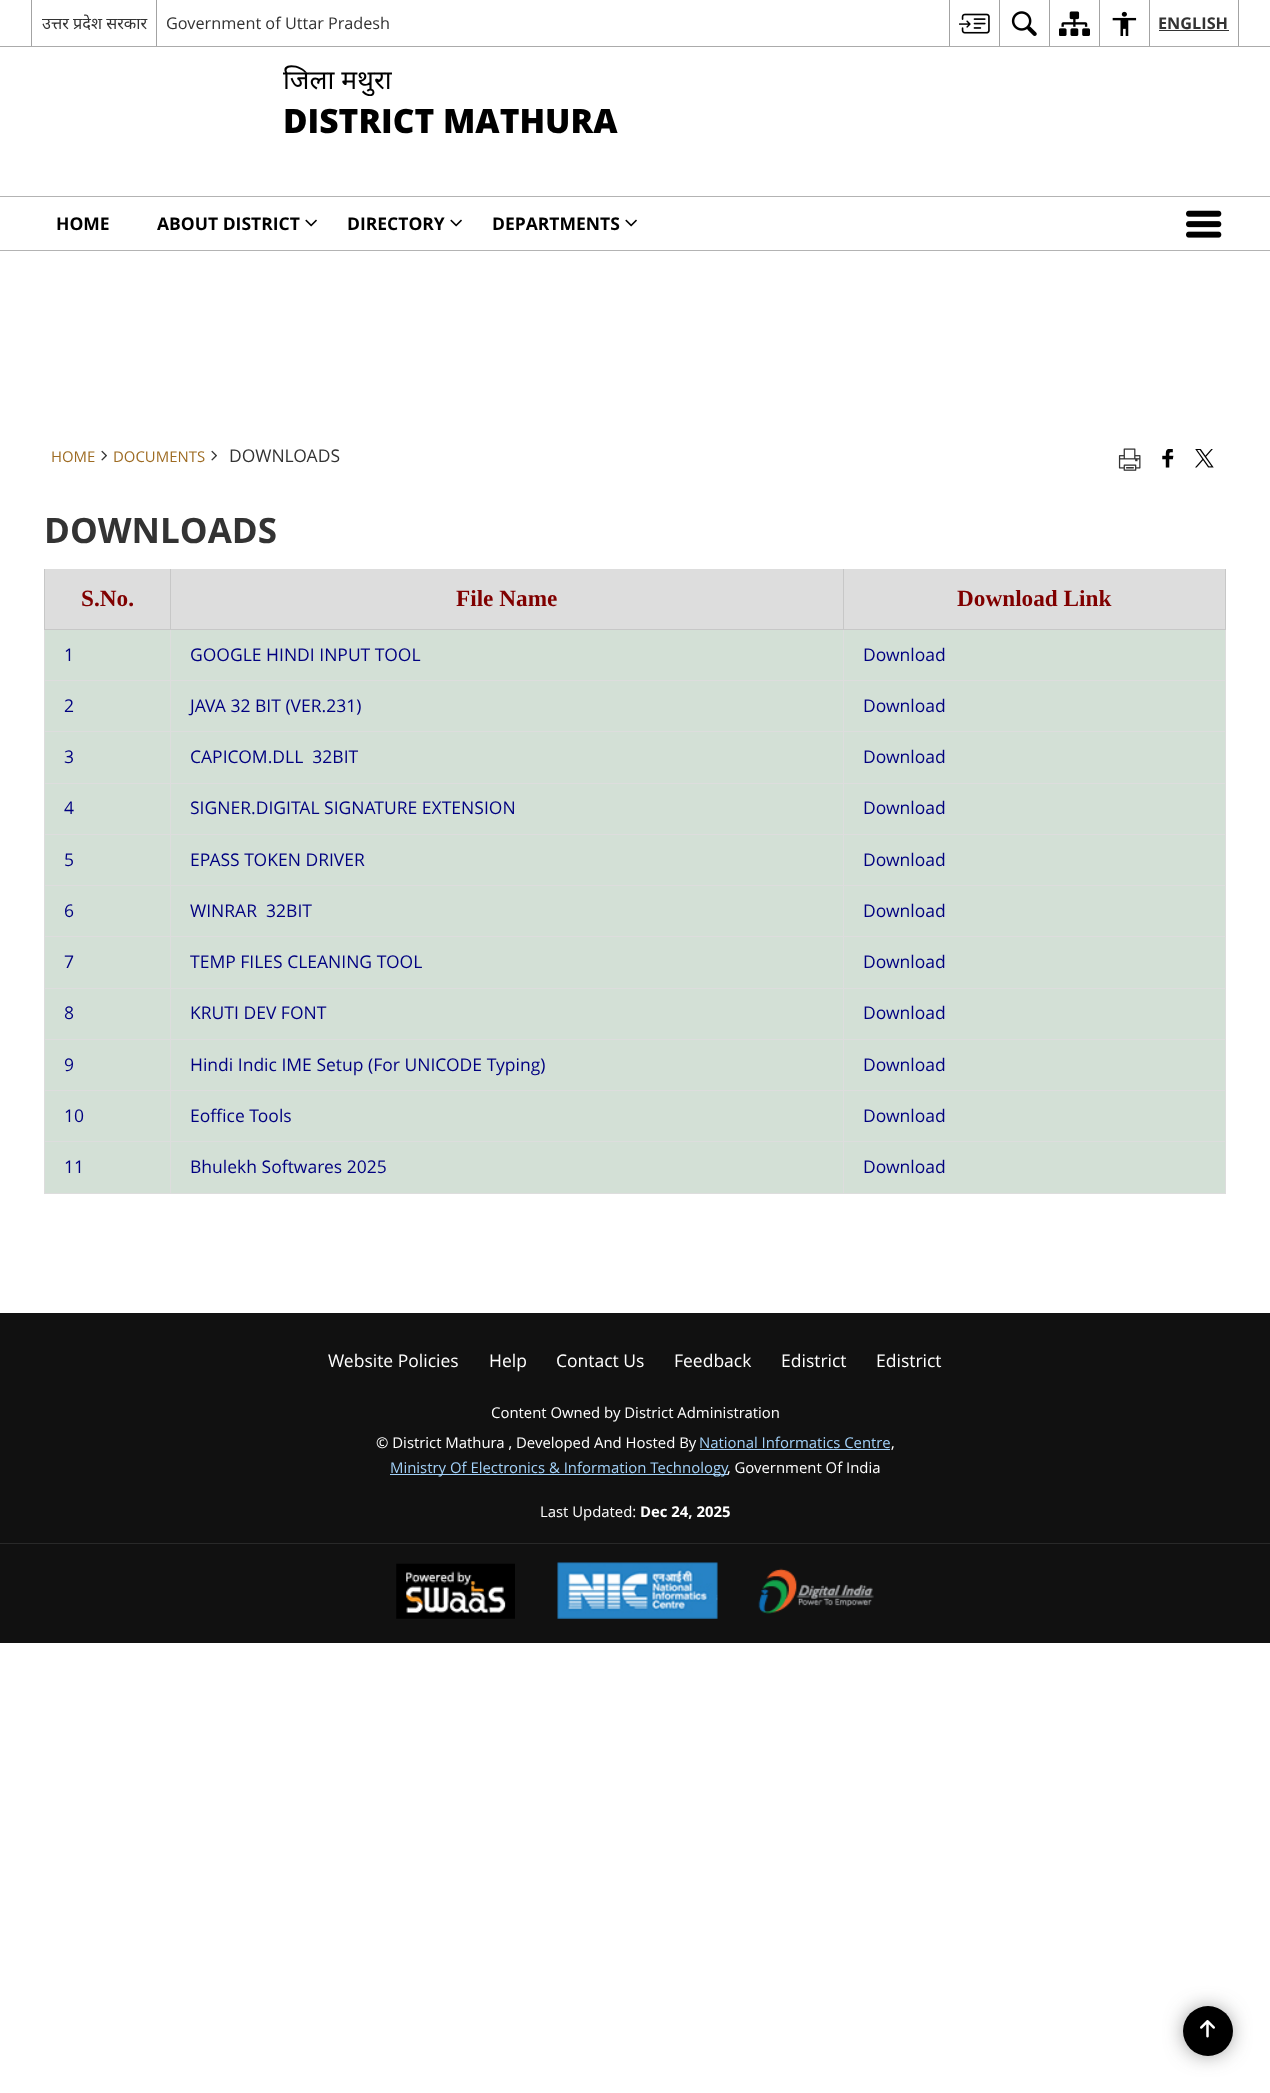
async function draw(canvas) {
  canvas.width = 1270
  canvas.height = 2093
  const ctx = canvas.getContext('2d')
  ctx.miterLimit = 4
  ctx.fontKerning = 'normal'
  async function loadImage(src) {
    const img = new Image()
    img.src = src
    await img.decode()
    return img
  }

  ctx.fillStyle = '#fff'
  ctx.fillRect(0, 0, 1270, 2093)
  ctx.fillStyle = '#ababab'
  ctx.fillRect(0, 46, 1270, 1)
  ctx.fillStyle = '#a3a3a3'
  ctx.fillRect(31, 0, 1, 46)
  ctx.font = '16.25px Noto Sans'
  ctx.fillStyle = '#333'
  ctx.fillText('उत्तर प्रदेश सरकार', 42, 29)
  ctx.fillStyle = '#a3a3a3'
  ctx.fillRect(156, 0, 1, 46)
  ctx.font = '16.25px Open Sans'
  ctx.fillStyle = '#333'
  ctx.fillText('Government of Uttar Pradesh', 166, 29)
  ctx.fillStyle = '#a3a3a3'
  ctx.fillRect(949, 0, 1, 46)
  ctx.drawImage(await loadImage('image0.png'), 959, 13, 31, 21)
  ctx.fillRect(999, 0, 1, 46)
  ctx.drawImage(await loadImage('image1.png'), 1011, 11, 26, 25)
  ctx.fillRect(1049, 0, 1, 46)
  ctx.drawImage(await loadImage('image2.png'), 1059, 11, 31, 25)
  ctx.fillRect(1099, 0, 1, 46)
  ctx.drawImage(await loadImage('image3.png'), 1112, 11, 25, 25)
  ctx.fillRect(1238, 0, 1, 46)
  ctx.fillRect(1149, 0, 1, 46)
  ctx.font = 'bold 16.25px Open Sans'
  ctx.fillStyle = '#333'
  ctx.fillText('ENGLISH', 1158, 29)
  ctx.fillRect(1159, 30, 70, 1)
  ctx.font = '26.5px Noto Sans'
  ctx.fillStyle = '#000'
  ctx.fillText('जिला मथुरा', 283, 89)
  ctx.font = '800 33.5px Open Sans'
  ctx.fillText('DISTRICT MATHURA', 283, 133)
  ctx.fillStyle = '#b3b3b3'
  ctx.fillRect(0, 196, 1270, 1)
  ctx.fillRect(0, 250, 1270, 1)
  ctx.font = 'bold 17.5px Open Sans'
  ctx.fillStyle = '#000'
  ctx.fillText('HOME', 56, 230)
  ctx.fillText('ABOUT DISTRICT', 157, 230)
  ctx.drawImage(await loadImage('image4.png'), 305, 219, 12, 8)
  ctx.fillText('DIRECTORY', 347, 230)
  ctx.drawImage(await loadImage('image4.png'), 450, 219, 12, 8)
  ctx.fillText('DEPARTMENTS', 492, 230)
  ctx.drawImage(await loadImage('image4.png'), 625, 219, 12, 8)
  ctx.drawImage(await loadImage('image5.png'), 1186, 210, 36, 28)
  ctx.font = '14.9px Open Sans'
  ctx.fillStyle = '#9e6b22'
  ctx.fillText('HOME', 51, 462)
  ctx.drawImage(await loadImage('image6.png'), 101, 450, 6, 11)
  ctx.fillText('DOCUMENTS', 113, 462)
  ctx.drawImage(await loadImage('image6.png'), 211, 450, 6, 11)
  ctx.font = '17.5px Open Sans'
  ctx.fillStyle = '#333'
  ctx.fillText('DOWNLOADS', 229, 462)
  ctx.drawImage(await loadImage('image7.png'), 1118, 448, 23, 23)
  ctx.drawImage(await loadImage('image8.png'), 1162, 449, 12, 19)
  ctx.drawImage(await loadImage('image9.png'), 1195, 449, 19, 19)
  ctx.font = 'bold 35px Open Sans'
  ctx.fillText('DOWNLOADS', 44, 543)
  ctx.fillStyle = '#ddd'
  ctx.fillRect(44, 569, 1182, 1)
  ctx.fillRect(1225, 630, 1, 564)
  ctx.fillRect(44, 1193, 1182, 1)
  ctx.fillRect(44, 630, 1, 564)
  ctx.fillRect(45, 570, 125, 59)
  ctx.fillStyle = '#c7c7c7'
  ctx.fillRect(1225, 569, 1, 61)
  ctx.fillStyle = '#d3e0d6'
  ctx.fillRect(45, 630, 1180, 50)
  ctx.fillRect(45, 681, 1180, 50)
  ctx.fillStyle = '#ddd'
  ctx.fillRect(44, 680, 1182, 1)
  ctx.fillStyle = '#d3e0d6'
  ctx.fillRect(45, 732, 1180, 51)
  ctx.fillStyle = '#ddd'
  ctx.fillRect(44, 731, 1182, 1)
  ctx.fillStyle = '#d3e0d6'
  ctx.fillRect(45, 784, 1180, 50)
  ctx.fillStyle = '#ddd'
  ctx.fillRect(44, 783, 1182, 1)
  ctx.fillStyle = '#d3e0d6'
  ctx.fillRect(45, 835, 1180, 50)
  ctx.fillStyle = '#ddd'
  ctx.fillRect(44, 834, 1182, 1)
  ctx.fillStyle = '#d3e0d6'
  ctx.fillRect(45, 886, 1180, 50)
  ctx.fillStyle = '#ddd'
  ctx.fillRect(44, 885, 1182, 1)
  ctx.fillStyle = '#d3e0d6'
  ctx.fillRect(45, 937, 1180, 51)
  ctx.fillStyle = '#ddd'
  ctx.fillRect(44, 936, 1182, 1)
  ctx.fillStyle = '#d3e0d6'
  ctx.fillRect(45, 989, 1180, 50)
  ctx.fillStyle = '#ddd'
  ctx.fillRect(44, 988, 1182, 1)
  ctx.fillStyle = '#d3e0d6'
  ctx.fillRect(45, 1040, 1180, 50)
  ctx.fillStyle = '#ddd'
  ctx.fillRect(44, 1039, 1182, 1)
  ctx.fillStyle = '#d3e0d6'
  ctx.fillRect(45, 1091, 1180, 50)
  ctx.fillStyle = '#ddd'
  ctx.fillRect(44, 1090, 1182, 1)
  ctx.fillStyle = '#d3e0d6'
  ctx.fillRect(45, 1142, 1180, 51)
  ctx.fillStyle = '#ddd'
  ctx.fillRect(44, 1141, 1182, 1)
  ctx.fillRect(843, 1141, 1, 53)
  ctx.fillRect(843, 1090, 1, 53)
  ctx.fillRect(843, 1039, 1, 52)
  ctx.fillRect(843, 988, 1, 52)
  ctx.fillRect(843, 936, 1, 53)
  ctx.fillRect(843, 885, 1, 53)
  ctx.fillRect(843, 834, 1, 52)
  ctx.fillRect(843, 783, 1, 52)
  ctx.fillRect(843, 731, 1, 53)
  ctx.fillRect(843, 629, 1, 104)
  ctx.fillStyle = '#c7c7c7'
  ctx.fillRect(843, 629, 383, 1)
  ctx.fillRect(843, 569, 1, 61)
  ctx.fillStyle = '#ddd'
  ctx.fillRect(170, 1141, 1, 53)
  ctx.fillRect(170, 1090, 1, 53)
  ctx.fillRect(170, 1039, 1, 52)
  ctx.fillRect(170, 988, 1, 52)
  ctx.fillRect(170, 936, 1, 53)
  ctx.fillRect(170, 885, 1, 53)
  ctx.fillRect(170, 834, 1, 52)
  ctx.fillRect(170, 783, 1, 52)
  ctx.fillRect(170, 731, 1, 53)
  ctx.fillRect(170, 629, 1, 104)
  ctx.fillStyle = '#c7c7c7'
  ctx.fillRect(170, 629, 674, 1)
  ctx.fillRect(170, 569, 1, 61)
  ctx.fillRect(44, 629, 127, 1)
  ctx.fillRect(44, 569, 1, 61)
  ctx.font = 'bold 23.25px Liberation Serif'
  ctx.fillStyle = '#800000'
  ctx.fillText('S.No.', 81, 606)
  ctx.fillStyle = '#ddd'
  ctx.fillRect(171, 570, 672, 59)
  ctx.fillStyle = '#800000'
  ctx.fillText('File Name', 456, 606)
  ctx.fillStyle = '#ddd'
  ctx.fillRect(844, 570, 381, 59)
  ctx.fillStyle = '#800000'
  ctx.fillText('Download Link', 957, 606)
  ctx.font = '17.5px Open Sans'
  ctx.fillStyle = '#000080'
  ctx.fillText('1', 64, 661)
  ctx.fillText('GOOGLE HINDI INPUT TOOL', 190, 661)
  ctx.fillText('Download', 863, 661)
  ctx.fillText('2', 64, 712)
  ctx.fillText('JAVA 32 BIT (VER.231)', 190, 712)
  ctx.fillText('Download', 863, 712)
  ctx.fillText('3', 64, 763)
  ctx.fillText('CAPICOM.DLL  32BIT', 190, 763)
  ctx.fillText('Download', 863, 763)
  ctx.fillText('4', 64, 814)
  ctx.fillText('SIGNER.DIGITAL SIGNATURE EXTENSION', 190, 814)
  ctx.fillText('Download', 863, 814)
  ctx.fillText('5', 64, 866)
  ctx.fillText('EPASS TOKEN DRIVER', 190, 866)
  ctx.fillText('Download', 863, 866)
  ctx.fillText('6', 64, 917)
  ctx.fillText('WINRAR  32BIT', 190, 917)
  ctx.fillText('Download', 863, 917)
  ctx.fillText('7', 64, 968)
  ctx.fillText('TEMP FILES CLEANING TOOL', 190, 968)
  ctx.fillText('Download', 863, 968)
  ctx.fillText('8', 64, 1019)
  ctx.fillText('KRUTI DEV FONT', 190, 1019)
  ctx.fillText('Download', 863, 1019)
  ctx.fillText('9', 64, 1071)
  ctx.fillText('Hindi Indic IME Setup (For UNICODE Typing)', 190, 1071)
  ctx.fillText('Download', 863, 1071)
  ctx.fillText('10', 64, 1122)
  ctx.fillText('Eoffice Tools', 190, 1122)
  ctx.fillText('Download', 863, 1122)
  ctx.fillText('11', 64, 1173)
  ctx.fillText('Bhulekh Softwares 2025', 190, 1173)
  ctx.fillText('Download', 863, 1173)
  ctx.fillStyle = '#111'
  ctx.fillRect(0, 1313, 1270, 330)
  ctx.fillStyle = '#fff'
  ctx.fillText('Website Policies', 328, 1367)
  ctx.fillText('Help', 489, 1367)
  ctx.fillText('Contact Us', 556, 1367)
  ctx.fillText('Feedback', 674, 1367)
  ctx.fillText('Edistrict', 781, 1367)
  ctx.fillText('Edistrict', 876, 1367)
  ctx.font = '14.9px Open Sans'
  ctx.fillText('Content Owned by District Administration', 491, 1418)
  ctx.fillText('© District Mathura , Developed And Hosted By', 376, 1448)
  ctx.fillStyle = '#a3d2f9'
  ctx.fillText('National Informatics Centre', 699, 1448)
  ctx.fillRect(700, 1449, 190, 1)
  ctx.fillStyle = '#fff'
  ctx.fillText(',', 891, 1448)
  ctx.fillStyle = '#a3d2f9'
  ctx.fillRect(390, 1474, 338, 1)
  ctx.fillText('Ministry Of Electronics & Information Technology', 390, 1473)
  ctx.fillStyle = '#fff'
  ctx.fillText(', Government Of India', 727, 1473)
  ctx.fillText('Last Updated:', 540, 1517)
  ctx.font = 'bold 14.9px Open Sans'
  ctx.fillText('Dec 24, 2025', 640, 1517)
  ctx.fillStyle = '#292929'
  ctx.fillRect(0, 1543, 1270, 1)
  ctx.drawImage(await loadImage('image10.png'), 396, 1563, 119, 56)
  ctx.drawImage(await loadImage('image11.png'), 557, 1562, 161, 57)
  ctx.drawImage(await loadImage('image12.png'), 758, 1568, 116, 46)
  ctx.fillStyle = '#3c3c3c'
  ctx.filter = 'blur(12px)'
  ctx.beginPath()
  ctx.roundRect(1189, 2013, 37, 37, 18.5)
  ctx.fill()
  ctx.filter = 'none'
  ctx.fillStyle = '#000'
  ctx.beginPath()
  ctx.arc(1208, 2031, 25, 0, 2 * Math.PI)
  ctx.fill()
  ctx.drawImage(await loadImage('image13.png'), 1200, 2020, 15, 18)
}

draw(document.querySelector('canvas'))
